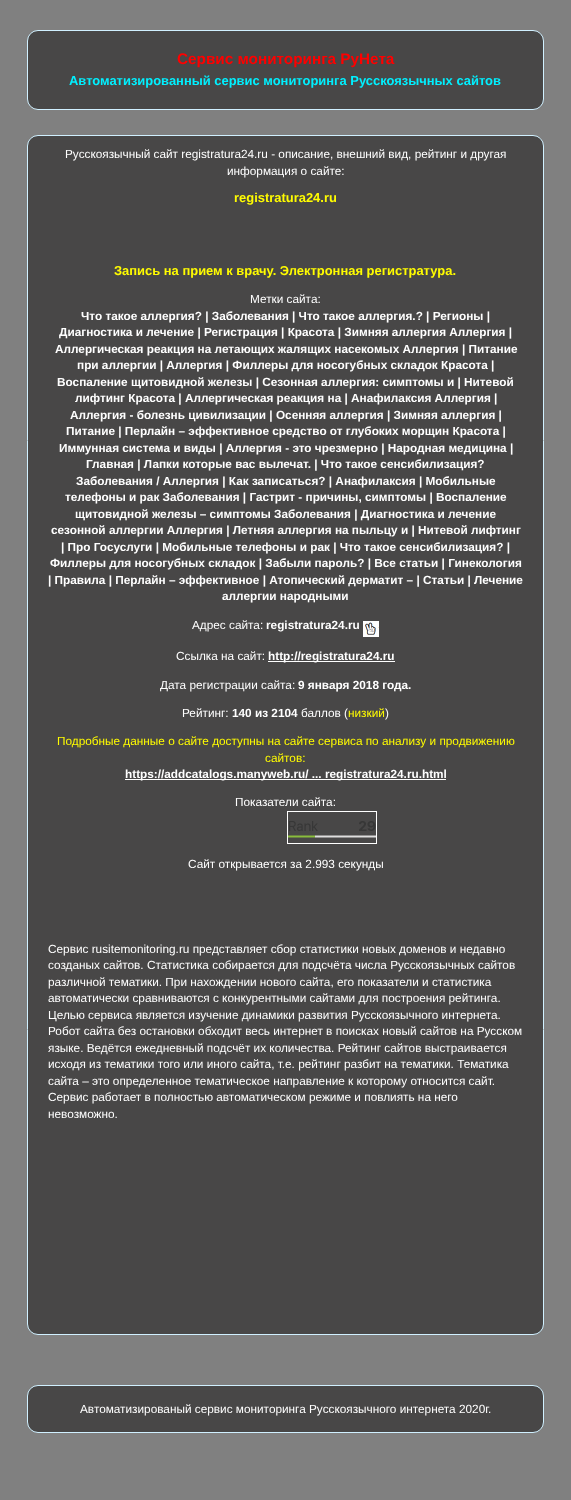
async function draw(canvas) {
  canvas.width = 571
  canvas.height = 1500
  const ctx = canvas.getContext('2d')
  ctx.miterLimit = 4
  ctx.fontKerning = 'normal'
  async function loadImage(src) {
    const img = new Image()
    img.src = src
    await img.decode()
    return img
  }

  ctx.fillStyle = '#808080'
  ctx.fillRect(0, 0, 571, 1500)
  ctx.fillStyle = '#484747'
  ctx.beginPath()
  ctx.roundRect(27.5, 30.5, 516, 79, 10.5)
  ctx.fill()
  ctx.strokeStyle = '#d0f0ff'
  ctx.stroke()
  ctx.font = 'bold 15.3px Liberation Sans'
  ctx.fillStyle = '#fe0000'
  ctx.fillText('Сервис мониторинга РуНета', 177, 64)
  ctx.font = 'bold 12.95px Liberation Sans'
  ctx.fillStyle = '#00f0ff'
  ctx.fillText('Автоматизированный сервис мониторинга Русскоязычных сайтов', 69, 85)
  ctx.fillStyle = '#484747'
  ctx.beginPath()
  ctx.roundRect(27.5, 135.5, 516, 1199, 10.5)
  ctx.fill()
  ctx.stroke()
  ctx.font = '11.8px Liberation Sans'
  ctx.fillStyle = '#fff'
  ctx.fillText('Русскоязычный сайт registratura24.ru - описание, внешний вид, рейтинг и другая', 65, 158)
  ctx.fillText('информация о сайте:', 227, 175)
  ctx.font = 'bold 12.95px Liberation Sans'
  ctx.fillStyle = '#fffc00'
  ctx.fillText('registratura24.ru', 234, 202)
  ctx.fillText('Запись на прием к врачу. Электронная регистратура.', 114, 275)
  ctx.font = '11.8px Liberation Sans'
  ctx.fillStyle = '#fff'
  ctx.fillText('Метки сайта:', 250, 303)
  ctx.font = 'bold 11.8px Liberation Sans'
  ctx.fillText('Что такое аллергия? | Заболевания | Что такое аллергия.? | Регионы |', 81, 320)
  ctx.fillText('Диагностика и лечение | Регистрация | Красота | Зимняя аллергия Аллергия |', 59, 336)
  ctx.fillText('Аллергическая реакция на летающих жалящих насекомых Аллергия | Питание', 55, 353)
  ctx.fillText('при аллергии | Аллергия | Филлеры для носогубных складок Красота |', 77, 369)
  ctx.fillText('Воспаление щитовидной железы | Сезонная аллергия: симптомы и | Нитевой', 57, 386)
  ctx.fillText('лифтинг Красота | Аллергическая реакция на | Анафилаксия Аллергия |', 75, 402)
  ctx.fillText('Аллергия - болезнь цивилизации | Осенняя аллергия | Зимняя аллергия |', 70, 419)
  ctx.fillText('Питание | Перлайн – эффективное средство от глубоких морщин Красота |', 66, 435)
  ctx.fillText('Иммунная система и виды | Аллергия - это чрезмерно | Народная медицина |', 59, 452)
  ctx.fillText('Главная | Лапки которые вас вылечат. | Что такое сенсибилизация?', 86, 468)
  ctx.fillText('Заболевания / Аллергия | Как записаться? | Анафилаксия | Мобильные', 76, 485)
  ctx.fillText('телефоны и рак Заболевания | Гастрит - причины, симптомы | Воспаление', 65, 501)
  ctx.fillText('щитовидной железы – симптомы Заболевания | Диагностика и лечение', 75, 518)
  ctx.fillText('сезонной аллергии Аллергия | Летняя аллергия на пыльцу и | Нитевой лифтинг', 51, 534)
  ctx.fillText('| Про Госуслуги | Мобильные телефоны и рак | Что такое сенсибилизация? |', 61, 551)
  ctx.fillText('Филлеры для носогубных складок | Забыли пароль? | Все статьи | Гинекология', 50, 567)
  ctx.fillText('| Правила | Перлайн – эффективное | Атопический дерматит – | Статьи | Лечение', 48, 584)
  ctx.fillText('аллергии народными', 222, 600)
  ctx.font = '11.8px Liberation Sans'
  ctx.fillText('Адрес сайта:', 192, 629)
  ctx.font = 'bold 11.8px Liberation Sans'
  ctx.fillText('registratura24.ru', 266, 629)
  ctx.drawImage(await loadImage('image0.png'), 363, 621, 16, 16)
  ctx.font = '11.8px Liberation Sans'
  ctx.fillText('Ссылка на сайт:', 176, 660)
  ctx.fillRect(268, 661, 127, 1)
  ctx.font = 'bold 11.8px Liberation Sans'
  ctx.fillText('http://registratura24.ru', 268, 660)
  ctx.font = '11.8px Liberation Sans'
  ctx.fillText('Дата регистрации сайта:', 160, 689)
  ctx.font = 'bold 11.8px Liberation Sans'
  ctx.fillText('9 января 2018 года.', 298, 689)
  ctx.font = '11.8px Liberation Sans'
  ctx.fillText('Рейтинг:', 182, 717)
  ctx.font = 'bold 11.8px Liberation Sans'
  ctx.fillText('140 из 2104', 232, 717)
  ctx.font = '11.8px Liberation Sans'
  ctx.fillText('баллов (', 301, 717)
  ctx.fillStyle = '#fffc00'
  ctx.fillText('низкий', 348, 717)
  ctx.fillStyle = '#fff'
  ctx.fillText(')', 385, 717)
  ctx.fillStyle = '#fffc00'
  ctx.fillText('Подробные данные о сайте доступны на сайте сервиса по анализу и продвижению', 57, 745)
  ctx.fillText('сайтов:', 265, 762)
  ctx.fillStyle = '#fff'
  ctx.fillRect(125, 779, 321, 1)
  ctx.font = 'bold 11.8px Liberation Sans'
  ctx.fillText('https://addcatalogs.manyweb.ru/ ... registratura24.ru.html', 125, 778)
  ctx.font = '11.8px Liberation Sans'
  ctx.fillText('Показатели сайта:', 235, 806)
  ctx.strokeStyle = '#fff'
  ctx.strokeRect(287.5, 811.5, 89, 32)
  ctx.drawImage(await loadImage('image1.png'), 288, 821, 88, 17)
  ctx.fillText('Сайт открывается за 2.993 секунды', 188, 868)
  ctx.fillText('Сервис rusitemonitoring.ru представляет сбор статистики новых доменов и недавно', 48, 953)
  ctx.fillText('созданых сайтов. Статистика собирается для подсчёта числа Русскоязычных сайтов', 48, 969)
  ctx.fillText('различной тематики. При нахождении нового сайта, его показатели и статистика', 48, 986)
  ctx.fillText('автоматически сравниваются с конкурентными сайтами для построения рейтинга.', 48, 1002)
  ctx.fillText('Целью сервиса является изучение динамики развития Русскоязычного интернета.', 48, 1019)
  ctx.fillText('Робот сайта без остановки обходит весь интернет в поисках новый сайтов на Русском', 48, 1035)
  ctx.fillText('языке. Ведётся ежедневный подсчёт их количества. Рейтинг сайтов выстраивается', 48, 1052)
  ctx.fillText('исходя из тематики того или иного сайта, т.е. рейтинг разбит на тематики. Тематика', 48, 1068)
  ctx.fillText('сайта – это определенное тематическое направление к которому относится сайт.', 48, 1085)
  ctx.fillText('Сервис работает в полностью автоматическом режиме и повлиять на него', 48, 1101)
  ctx.fillText('невозможно.', 48, 1118)
  ctx.fillStyle = '#484747'
  ctx.beginPath()
  ctx.roundRect(27.5, 1385.5, 516, 47, 10.5)
  ctx.fill()
  ctx.strokeStyle = '#d0f0ff'
  ctx.stroke()
  ctx.fillStyle = '#fff'
  ctx.fillText('Автоматизированый сервис мониторинга Русскоязычного интернета 2020г.', 80, 1413)
}

draw(document.querySelector('canvas'))
